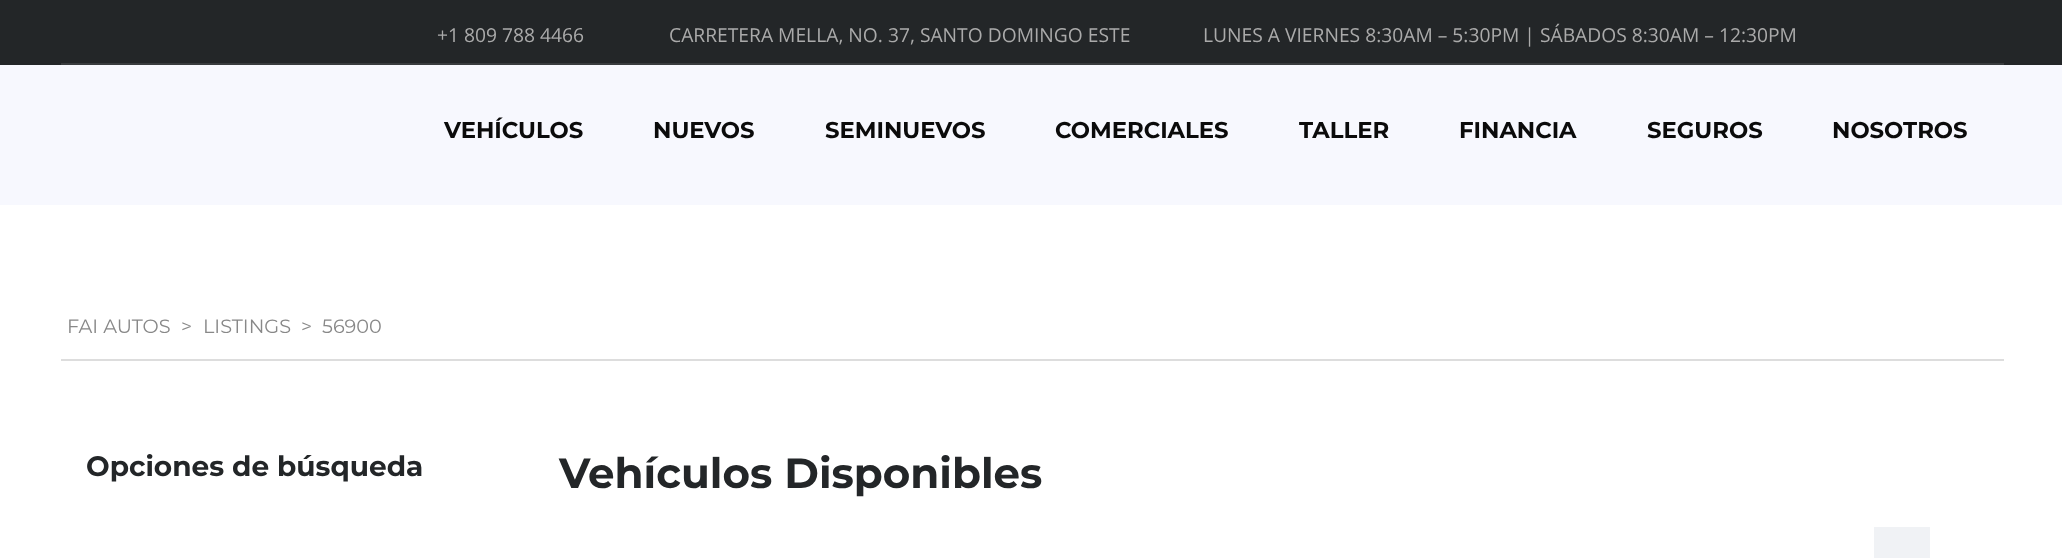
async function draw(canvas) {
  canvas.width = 2062
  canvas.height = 558
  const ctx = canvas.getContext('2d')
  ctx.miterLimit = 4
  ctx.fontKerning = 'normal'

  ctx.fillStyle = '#fff'
  ctx.fillRect(0, 0, 2062, 558)
  ctx.fillStyle = '#232628'
  ctx.fillRect(0, 0, 2062, 65)
  ctx.fillStyle = '#393c3e'
  ctx.fillRect(61, 63, 1943, 2)
  ctx.font = '19.25px Open Sans'
  ctx.fillStyle = '#aaa'
  ctx.fillText('+1 809 788 4466', 437, 42)
  ctx.fillText('CARRETERA MELLA, NO. 37, SANTO DOMINGO ESTE', 669, 42)
  ctx.fillText('LUNES A VIERNES 8:30AM – 5:30PM | SÁBADOS 8:30AM – 12:30PM', 1203, 42)
  ctx.fillStyle = '#f7f8fe'
  ctx.fillRect(0, 65, 2062, 140)
  ctx.font = 'bold 22.75px Montserrat'
  ctx.fillStyle = '#0b0b0b'
  ctx.fillText('VEHÍCULOS', 444, 138)
  ctx.fillText('NUEVOS', 653, 138)
  ctx.fillText('SEMINUEVOS', 825, 138)
  ctx.fillText('COMERCIALES', 1055, 138)
  ctx.fillText('TALLER', 1299, 138)
  ctx.fillText('FINANCIA', 1459, 138)
  ctx.fillText('SEGUROS', 1647, 138)
  ctx.fillText('NOSOTROS', 1832, 138)
  ctx.fillStyle = '#ddd'
  ctx.fillRect(61, 359, 1943, 2)
  ctx.font = '19.25px Montserrat'
  ctx.fillStyle = '#888'
  ctx.fillText('FAI AUTOS', 67, 333)
  ctx.fillText('>', 181, 333)
  ctx.fillText('LISTINGS', 203, 333)
  ctx.fillText('>', 301, 333)
  ctx.fillText('56900', 322, 333)
  ctx.font = 'bold 28px Montserrat'
  ctx.fillStyle = '#232628'
  ctx.fillText('Opciones de búsqueda', 86, 476)
  ctx.font = 'bold 42px Montserrat'
  ctx.fillText('Vehículos Disponibles', 559, 488)
  ctx.fillStyle = '#f0f2f5'
  ctx.fillRect(1874, 527, 56, 31)
}

draw(document.querySelector('canvas'))
